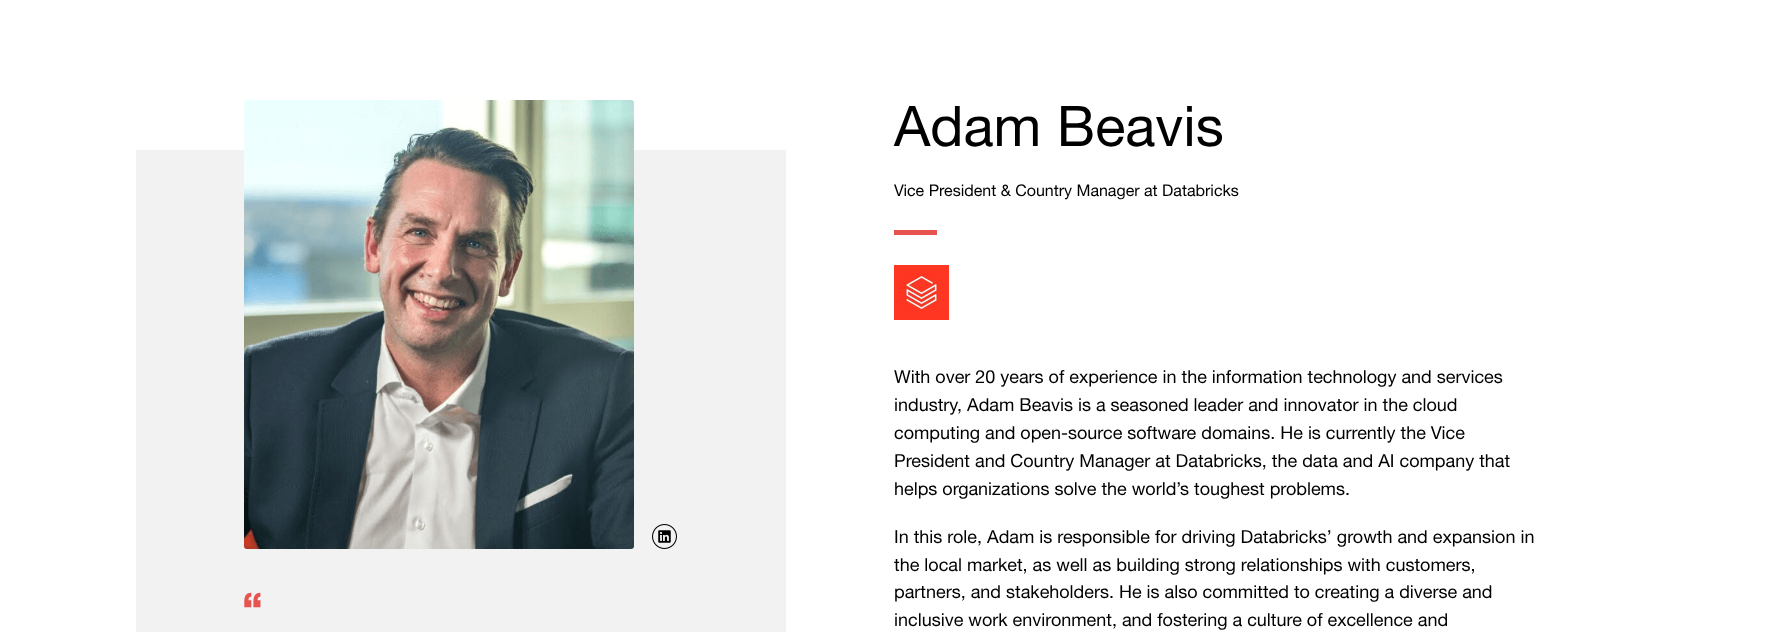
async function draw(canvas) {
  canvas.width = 1788
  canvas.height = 632
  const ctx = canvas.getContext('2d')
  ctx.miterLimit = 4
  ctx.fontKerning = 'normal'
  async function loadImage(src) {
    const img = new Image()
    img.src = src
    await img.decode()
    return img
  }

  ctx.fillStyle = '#fff'
  ctx.fillRect(0, 0, 1788, 632)
  ctx.fillStyle = '#f2f2f2'
  ctx.fillRect(136, 150, 650, 482)
  ctx.drawImage(await loadImage('image0.png'), 244, 100, 390, 449)
  ctx.drawImage(await loadImage('image1.png'), 652, 524, 25, 25)
  ctx.letterSpacing = '-1px'
  ctx.font = 'bold 50px Helvetica Neue'
  ctx.fillStyle = '#e7534f'
  ctx.fillText('“', 241, 630)
  ctx.letterSpacing = '0px'
  ctx.font = '56px Helvetica Neue'
  ctx.fillStyle = '#000'
  ctx.fillText('Adam Beavis', 894, 146)
  ctx.font = '16px Helvetica Neue'
  ctx.fillText('Vice President & Country Manager at Databricks', 894, 196)
  ctx.fillStyle = '#e7534f'
  ctx.fillRect(894, 230, 43, 5)
  ctx.drawImage(await loadImage('image2.png'), 894, 265, 55, 55)
  ctx.font = '18px Helvetica Neue'
  ctx.fillStyle = '#000'
  ctx.fillText('With over 20 years of experience in the information technology and services', 894, 383)
  ctx.fillText('industry, Adam Beavis is a seasoned leader and innovator in the cloud', 894, 411)
  ctx.fillText('computing and open-source software domains. He is currently the Vice', 894, 439)
  ctx.fillText('President and Country Manager at Databricks, the data and AI company that', 894, 467)
  ctx.fillText('helps organizations solve the world’s toughest problems.', 894, 495)
  ctx.fillText('In this role, Adam is responsible for driving Databricks’ growth and expansion in', 894, 543)
  ctx.fillText('the local market, as well as building strong relationships with customers,', 894, 571)
  ctx.fillText('partners, and stakeholders. He is also committed to creating a diverse and', 894, 598)
  ctx.fillText('inclusive work environment, and fostering a culture of excellence and', 894, 626)
}

draw(document.querySelector('canvas'))
